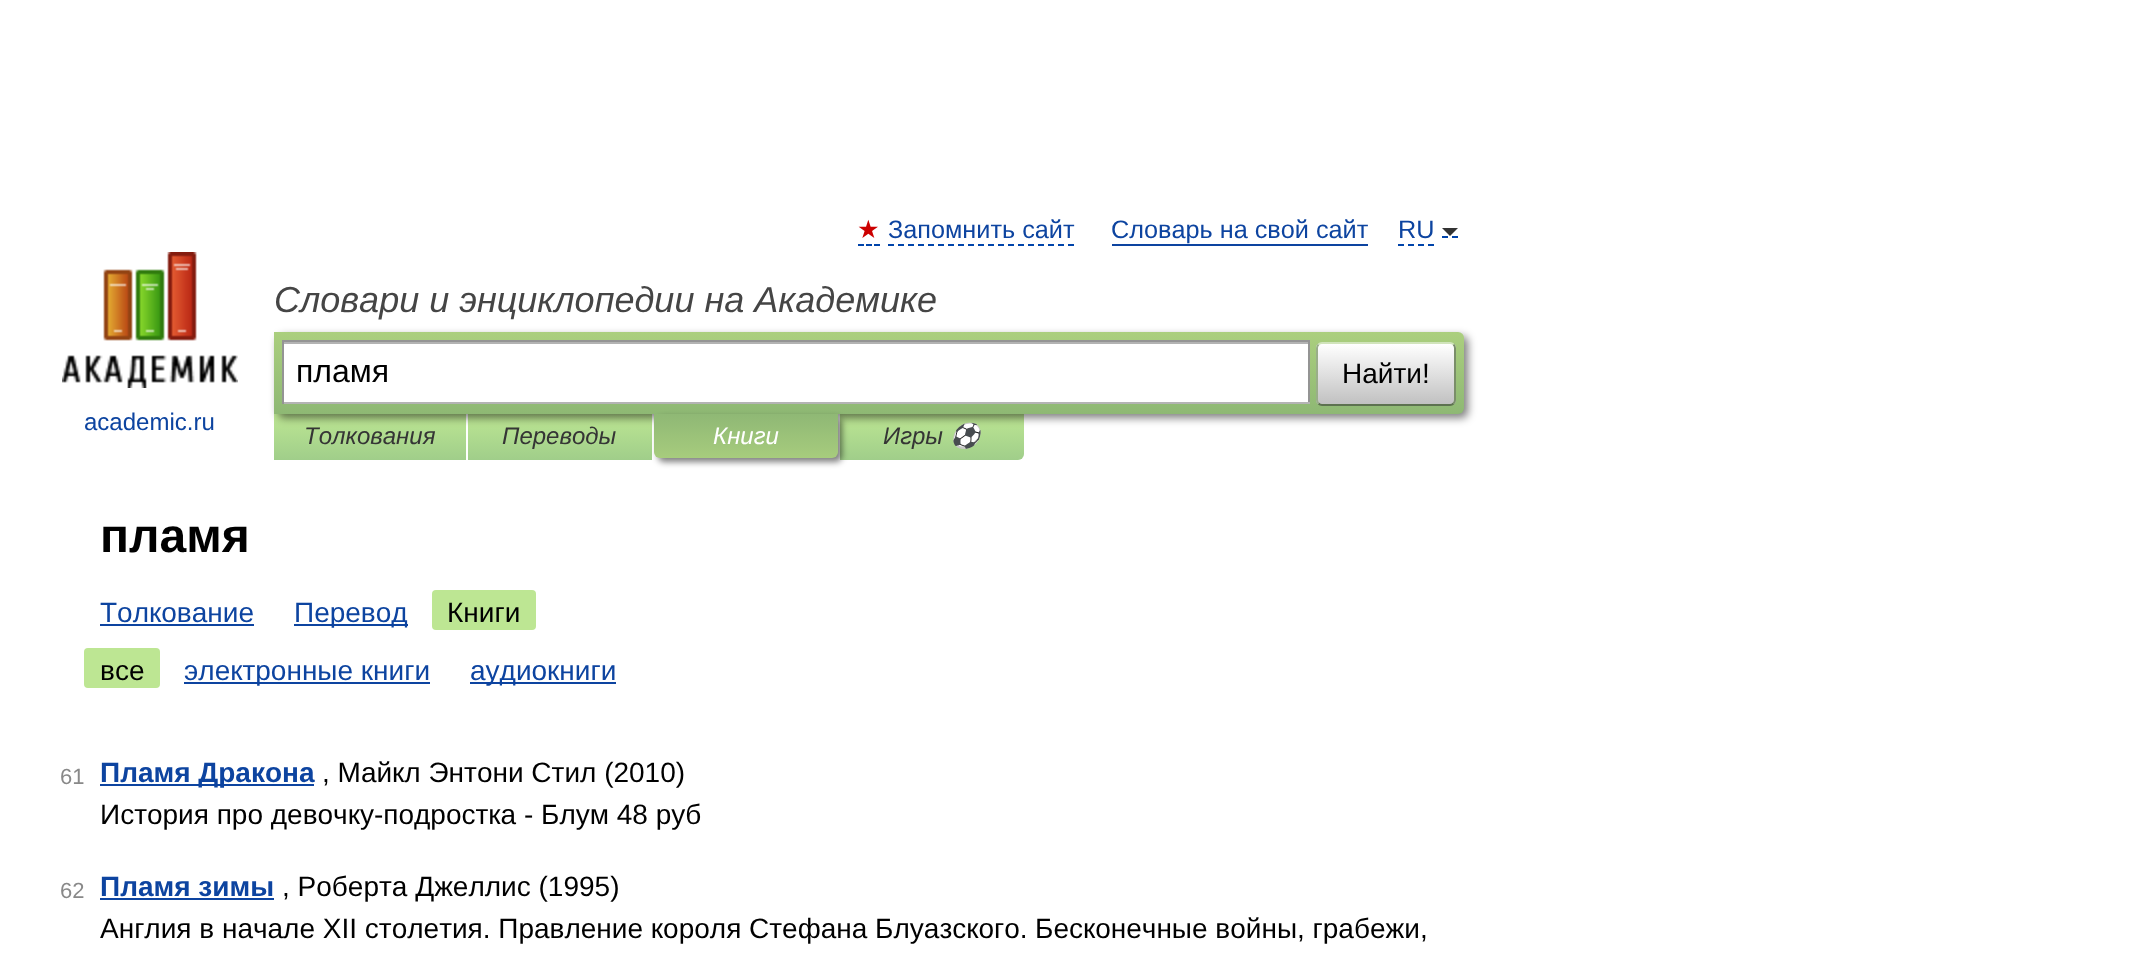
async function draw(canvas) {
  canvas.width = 2147
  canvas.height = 968
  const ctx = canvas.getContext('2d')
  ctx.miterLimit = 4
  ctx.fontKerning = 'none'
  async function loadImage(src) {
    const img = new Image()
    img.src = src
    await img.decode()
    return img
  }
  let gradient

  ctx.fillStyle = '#fff'
  ctx.fillRect(0, 0, 2147, 968)
  ctx.font = '25.25px DejaVu Sans'
  ctx.fillStyle = '#c00'
  ctx.fillText('★', 857, 238)
  ctx.beginPath()
  ctx.moveTo(858, 245)
  ctx.lineTo(864, 245)
  ctx.moveTo(866, 245)
  ctx.lineTo(872, 245)
  ctx.moveTo(874, 245)
  ctx.lineTo(880, 245)
  ctx.strokeStyle = '#04a'
  ctx.lineWidth = 2
  ctx.stroke()
  ctx.font = '25.25px Liberation Sans'
  ctx.fillStyle = '#0d44a0'
  ctx.fillText('Запомнить сайт', 888, 238)
  ctx.beginPath()
  ctx.moveTo(888, 245)
  ctx.lineTo(1074, 245)
  ctx.setLineDash([6, 4])
  ctx.stroke()
  ctx.fillText('Словарь на свой сайт', 1111, 238)
  ctx.fillRect(1112, 244, 256, 2)
  ctx.beginPath()
  ctx.moveTo(1398, 245)
  ctx.lineTo(1434, 245)
  ctx.stroke()
  ctx.beginPath()
  ctx.moveTo(1442, 237)
  ctx.lineTo(1448, 237)
  ctx.moveTo(1452, 237)
  ctx.lineTo(1458, 237)
  ctx.setLineDash([])
  ctx.stroke()
  ctx.fillText('RU', 1398, 238)
  ctx.fillStyle = '#333'
  ctx.beginPath()
  ctx.moveTo(1442, 228)
  ctx.lineTo(1458, 228)
  ctx.lineTo(1450, 236)
  ctx.closePath()
  ctx.fill()
  ctx.font = 'italic 36px Liberation Sans'
  ctx.fillStyle = '#454545'
  ctx.fillText('Словари и энциклопедии на Академике', 274, 312)
  gradient = ctx.createLinearGradient(370, 414, 370, 460)
  gradient.addColorStop(0, '#bde693')
  gradient.addColorStop(1, '#a0ce8a')
  ctx.fillStyle = gradient
  ctx.fillRect(274, 414, 192, 46)
  gradient = ctx.createLinearGradient(560, 414, 560, 460)
  gradient.addColorStop(0, '#bde693')
  gradient.addColorStop(1, '#a0ce8a')
  ctx.fillStyle = gradient
  ctx.fillRect(468, 414, 184, 46)
  gradient = ctx.createLinearGradient(932, 414, 932, 460)
  gradient.addColorStop(0, '#bde693')
  gradient.addColorStop(1, '#a0ce8a')
  ctx.fillStyle = gradient
  ctx.beginPath()
  ctx.roundRect(840, 414, 184, 46, [0, 0, 6, 0])
  ctx.fill()
  ctx.fillStyle = '#00000080'
  ctx.filter = 'blur(4px)'
  ctx.beginPath()
  ctx.roundRect(278, 336, 1190, 82, 6)
  ctx.fill()
  ctx.filter = 'none'
  gradient = ctx.createLinearGradient(869, 332, 869, 414)
  gradient.addColorStop(0, '#abcf7e')
  gradient.addColorStop(1, '#8eb874')
  ctx.fillStyle = gradient
  ctx.beginPath()
  ctx.roundRect(274, 332, 1190, 82, [0, 6, 6, 0])
  ctx.fill()
  ctx.fillStyle = '#fff'
  ctx.fillRect(284, 344, 1024, 58)
  ctx.fillStyle = '#b3b3b3'
  ctx.fillRect(284, 342, 1024, 2)
  ctx.fillStyle = '#949494'
  ctx.fillRect(282, 340, 1028, 2)
  ctx.fillRect(1308, 340, 2, 64)
  ctx.fillStyle = '#b4b4b4'
  ctx.fillRect(282, 402, 1028, 2)
  ctx.fillStyle = '#949494'
  ctx.fillRect(282, 340, 2, 64)
  ctx.font = '32px Liberation Sans'
  ctx.fillStyle = '#000'
  ctx.fillText('пламя', 296, 382)
  ctx.save()
  ctx.beginPath()
  ctx.roundRect(1316, 342, 140, 64, 6)
  ctx.clip()
  gradient = ctx.createLinearGradient(1386, 344, 1386, 404)
  gradient.addColorStop(0, '#fff')
  gradient.addColorStop(1, '#c1c1c1')
  ctx.fillStyle = gradient
  ctx.fillRect(1316, 344, 140, 60)
  ctx.restore()
  ctx.beginPath()
  ctx.moveTo(1318.5, 344.5)
  ctx.bezierCurveTo(1319.5, 343.5, 1320.5, 343, 1322, 343)
  ctx.lineTo(1450, 343)
  ctx.bezierCurveTo(1451.5, 343, 1452.5, 343.5, 1453.5, 344.5)
  ctx.strokeStyle = '#d1e4bc'
  ctx.stroke()
  ctx.beginPath()
  ctx.moveTo(1453.5, 344.5)
  ctx.bezierCurveTo(1454.5, 345.5, 1455, 346.5, 1455, 348)
  ctx.lineTo(1455, 400)
  ctx.bezierCurveTo(1455, 401.5, 1454.5, 402.5, 1453.5, 403.5)
  ctx.strokeStyle = '#7a8e69'
  ctx.stroke()
  ctx.beginPath()
  ctx.moveTo(1453.5, 403.5)
  ctx.bezierCurveTo(1452.5, 404.5, 1451.5, 405, 1450, 405)
  ctx.lineTo(1322, 405)
  ctx.bezierCurveTo(1320.5, 405, 1319.5, 404.5, 1318.5, 403.5)
  ctx.strokeStyle = '#5d7250'
  ctx.stroke()
  ctx.beginPath()
  ctx.moveTo(1318.5, 403.5)
  ctx.bezierCurveTo(1317.5, 402.5, 1317, 401.5, 1317, 400)
  ctx.lineTo(1317, 348)
  ctx.bezierCurveTo(1317, 346.5, 1317.5, 345.5, 1318.5, 344.5)
  ctx.strokeStyle = '#9aae89'
  ctx.stroke()
  ctx.font = '28px Liberation Sans'
  ctx.fillText('Найти!', 1342, 383)
  ctx.drawImage(await loadImage('image0.png'), 62, 252, 176, 136)
  ctx.font = '24px Liberation Sans'
  ctx.fillStyle = '#0d44a0'
  ctx.fillText('academic.ru', 84, 430)
  ctx.font = 'italic 24px Liberation Sans'
  ctx.fillStyle = '#353535'
  ctx.fillText('Толкования', 304, 444)
  ctx.fillText('Переводы', 502, 444)
  ctx.fillStyle = '#00000080'
  ctx.filter = 'blur(3px)'
  ctx.beginPath()
  ctx.roundRect(658, 418, 184, 44, 6)
  ctx.fill()
  ctx.filter = 'none'
  gradient = ctx.createLinearGradient(746, 414, 746, 458)
  gradient.addColorStop(0, '#8fb875')
  gradient.addColorStop(1, '#a7cc7d')
  ctx.fillStyle = gradient
  ctx.beginPath()
  ctx.roundRect(654, 414, 184, 44, [0, 0, 6, 6])
  ctx.fill()
  ctx.fillStyle = '#fff'
  ctx.fillText('Книги', 713, 444)
  ctx.fillStyle = '#353535'
  ctx.fillText('Игры', 883, 444)
  ctx.font = 'italic 24px Noto Color Emoji'
  ctx.fillText('⚽', 950, 444)
  ctx.font = 'bold 48px Liberation Sans'
  ctx.fillStyle = '#000'
  ctx.fillText('пламя', 100, 552)
  ctx.font = '28px Liberation Sans'
  ctx.fillStyle = '#0d44a0'
  ctx.fillText('Толкование', 100, 622)
  ctx.fillRect(100, 624, 154, 2)
  ctx.fillRect(294, 624, 114, 2)
  ctx.fillText('Перевод', 294, 622)
  ctx.fillStyle = '#bde693'
  ctx.beginPath()
  ctx.roundRect(432, 590, 104, 40, 4)
  ctx.fill()
  ctx.fillStyle = '#000'
  ctx.fillText('Книги', 447, 622)
  ctx.fillStyle = '#bde693'
  ctx.beginPath()
  ctx.roundRect(84, 648, 76, 40, 4)
  ctx.fill()
  ctx.fillStyle = '#000'
  ctx.fillText('все', 100, 680)
  ctx.fillStyle = '#0d44a0'
  ctx.fillRect(184, 682, 246, 2)
  ctx.fillText('электронные книги', 184, 680)
  ctx.fillRect(470, 682, 146, 2)
  ctx.fillText('аудиокниги', 470, 680)
  ctx.font = '22px Liberation Sans'
  ctx.fillStyle = '#898989'
  ctx.fillText('61', 60, 784)
  ctx.fillStyle = '#0d44a0'
  ctx.fillRect(100, 784, 214, 2)
  ctx.font = 'bold 28px Liberation Sans'
  ctx.fillText('Пламя Дракона', 100, 782)
  ctx.font = '28px Liberation Sans'
  ctx.fillStyle = '#000'
  ctx.fillText(', Майкл Энтони Стил (2010)', 322, 782)
  ctx.fillText('История про девочку-подростка - Блум 48 руб', 100, 824)
  ctx.font = '22px Liberation Sans'
  ctx.fillStyle = '#898989'
  ctx.fillText('62', 60, 898)
  ctx.font = 'bold 28px Liberation Sans'
  ctx.fillStyle = '#0d44a0'
  ctx.fillText('Пламя зимы', 100, 896)
  ctx.fillRect(100, 898, 174, 2)
  ctx.font = '28px Liberation Sans'
  ctx.fillStyle = '#000'
  ctx.fillText(', Роберта Джеллис (1995)', 282, 896)
  ctx.fillText('Англия в начале XII столетия. Правление короля Стефана Блуазского.', 100, 938)
  ctx.fillText('Бесконечные войны, грабежи,', 1035, 938)
}

draw(document.querySelector('canvas'))
